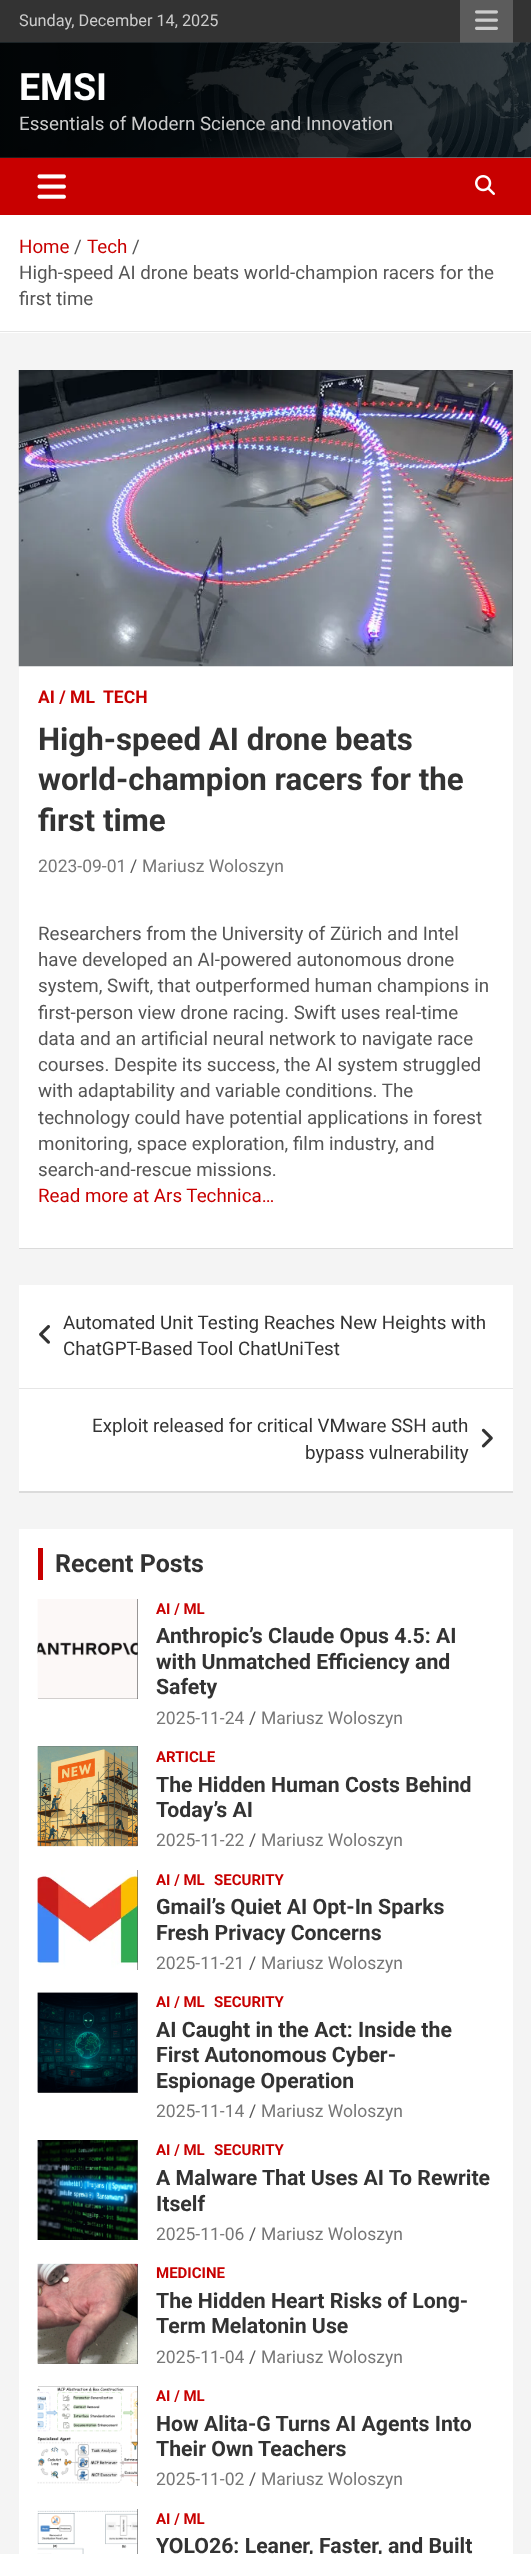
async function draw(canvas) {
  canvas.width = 531
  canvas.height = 2554
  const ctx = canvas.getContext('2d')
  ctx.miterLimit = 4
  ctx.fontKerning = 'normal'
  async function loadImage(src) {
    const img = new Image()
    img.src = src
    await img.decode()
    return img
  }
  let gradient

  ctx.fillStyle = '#f4f4f4'
  ctx.fillRect(0, 0, 531, 2554)
  ctx.fillStyle = '#333'
  ctx.fillRect(0, 0, 531, 43)
  ctx.font = '16.25px Roboto'
  ctx.fillStyle = '#ccc'
  ctx.fillText('Sunday, December 14, 2025', 19, 26)
  ctx.fillStyle = '#5c5c5c'
  ctx.fillRect(460, 0, 53, 43)
  ctx.drawImage(await loadImage('image0.png'), 475, 10, 23, 20)
  ctx.fillStyle = '#fff'
  ctx.fillRect(0, 157, 531, 1)
  ctx.drawImage(await loadImage('image1.png'), 0, 42, 531, 116)
  gradient = ctx.createLinearGradient(0, 100, 531, 100)
  gradient.addColorStop(0, '#000000cc')
  gradient.addColorStop(1, '#00000033')
  ctx.fillStyle = gradient
  ctx.fillRect(0, 43, 531, 115)
  ctx.font = 'bold 37.5px Roboto'
  ctx.fillStyle = '#fff'
  ctx.fillText('EMSI', 19, 100)
  ctx.font = '18.75px Roboto'
  ctx.fillStyle = '#ccc'
  ctx.fillText('Essentials of Modern Science and Innovation', 19, 130)
  ctx.fillStyle = '#c80000'
  ctx.fillRect(0, 158, 531, 57)
  ctx.drawImage(await loadImage('image2.png'), 37, 174, 29, 25)
  ctx.drawImage(await loadImage('image3.png'), 475, 175, 20, 20)
  ctx.fillStyle = '#fff'
  ctx.fillRect(0, 215, 531, 118)
  ctx.fillStyle = '#e6e6e6'
  ctx.fillRect(0, 331, 531, 1)
  ctx.fillStyle = '#c80000'
  ctx.fillText('Home', 19, 253)
  ctx.fillStyle = '#555'
  ctx.fillText('/', 74, 253)
  ctx.fillStyle = '#c80000'
  ctx.fillText('Tech', 87, 253)
  ctx.fillStyle = '#555'
  ctx.fillText('/', 132, 253)
  ctx.fillText('High-speed AI drone beats world-champion racers for the', 19, 279)
  ctx.fillText('first time', 19, 305)
  ctx.fillStyle = '#0000001a'
  ctx.filter = 'blur(0.5px)'
  ctx.beginPath()
  ctx.rect(19, 371, 494, 878)
  ctx.fill()
  ctx.filter = 'none'
  ctx.fillStyle = '#fff'
  ctx.fillRect(19, 666, 494, 582)
  ctx.fillStyle = '#555'
  ctx.fillRect(512, 370, 1, 296)
  ctx.drawImage(await loadImage('image4.png'), 18, 370, 495, 297)
  ctx.font = 'bold 17.5px Roboto'
  ctx.fillStyle = '#c80000'
  ctx.fillText('AI / ML', 38, 703)
  ctx.fillText('TECH', 103, 703)
  ctx.font = 'bold 31.25px Roboto'
  ctx.fillStyle = '#333'
  ctx.fillText('High-speed AI drone beats', 38, 750)
  ctx.fillText('world-champion racers for the', 38, 790)
  ctx.fillText('first time', 38, 831)
  ctx.font = '17.5px Roboto'
  ctx.fillStyle = '#777'
  ctx.fillText('2023-09-01', 38, 872)
  ctx.fillStyle = '#555'
  ctx.fillText('/', 130, 872)
  ctx.fillStyle = '#777'
  ctx.fillText('Mariusz Woloszyn', 142, 872)
  ctx.font = '18.75px Roboto'
  ctx.fillStyle = '#555'
  ctx.fillText('Researchers from the University of Zürich and Intel', 38, 940)
  ctx.fillText('have developed an AI-powered autonomous drone', 38, 966)
  ctx.fillText('system, Swift, that outperformed human champions in', 38, 992)
  ctx.fillText('first-person view drone racing. Swift uses real-time', 38, 1019)
  ctx.fillText('data and an artificial neural network to navigate race', 38, 1045)
  ctx.fillText('courses. Despite its success, the AI system struggled', 38, 1071)
  ctx.fillText('with adaptability and variable conditions. The', 38, 1097)
  ctx.fillText('technology could have potential applications in forest', 38, 1124)
  ctx.fillText('monitoring, space exploration, film industry, and', 38, 1150)
  ctx.fillText('search-and-rescue missions.', 38, 1176)
  ctx.fillStyle = '#c80000'
  ctx.fillText('Read more at Ars Technica…', 38, 1202)
  ctx.fillStyle = '#0000001a'
  ctx.filter = 'blur(0.5px)'
  ctx.beginPath()
  ctx.rect(19, 1286, 494, 207)
  ctx.fill()
  ctx.filter = 'none'
  ctx.fillStyle = '#fff'
  ctx.fillRect(19, 1285, 494, 206)
  ctx.fillStyle = '#e6e6e6'
  ctx.fillRect(19, 1388, 494, 1)
  ctx.drawImage(await loadImage('image5.png'), 39, 1325, 11, 19)
  ctx.fillStyle = '#333'
  ctx.fillText('Automated Unit Testing Reaches New Heights with', 63, 1329)
  ctx.fillText('ChatGPT-Based Tool ChatUniTest', 63, 1355)
  ctx.fillText('Exploit released for critical VMware SSH auth', 92, 1432)
  ctx.drawImage(await loadImage('image6.png'), 481, 1428, 12, 20)
  ctx.fillText('bypass vulnerability', 305, 1459)
  ctx.fillStyle = '#fff'
  ctx.fillRect(19, 1529, 494, 1025)
  ctx.fillStyle = '#c80000'
  ctx.fillRect(38, 1548, 5, 32)
  ctx.font = 'bold 25px Roboto'
  ctx.fillStyle = '#333'
  ctx.fillText('Recent Posts', 55, 1572)
  ctx.fillStyle = '#555'
  ctx.fillRect(38, 1599, 100, 100)
  ctx.drawImage(await loadImage('image7.png'), 37, 1599, 101, 100)
  ctx.font = 'bold 15px Roboto'
  ctx.fillStyle = '#c80000'
  ctx.fillText('AI / ML', 156, 1614)
  ctx.font = 'bold 21.25px Roboto'
  ctx.fillStyle = '#333'
  ctx.fillText('Anthropic’s Claude Opus 4.5: AI', 156, 1643)
  ctx.fillText('with Unmatched Efficiency and', 156, 1669)
  ctx.fillText('Safety', 156, 1694)
  ctx.font = '17.5px Roboto'
  ctx.fillStyle = '#777'
  ctx.fillText('2025-11-24', 156, 1724)
  ctx.fillStyle = '#555'
  ctx.fillText('/', 249, 1724)
  ctx.fillStyle = '#777'
  ctx.fillText('Mariusz Woloszyn', 261, 1724)
  ctx.fillStyle = '#555'
  ctx.fillRect(38, 1746, 100, 100)
  ctx.drawImage(await loadImage('image8.png'), 37, 1746, 101, 101)
  ctx.font = 'bold 15px Roboto'
  ctx.fillStyle = '#c80000'
  ctx.fillText('ARTICLE', 156, 1762)
  ctx.font = 'bold 21.25px Roboto'
  ctx.fillStyle = '#333'
  ctx.fillText('The Hidden Human Costs Behind', 156, 1792)
  ctx.fillText('Today’s AI', 156, 1817)
  ctx.font = '17.5px Roboto'
  ctx.fillStyle = '#777'
  ctx.fillText('2025-11-22', 156, 1846)
  ctx.fillStyle = '#555'
  ctx.fillText('/', 249, 1846)
  ctx.fillStyle = '#777'
  ctx.fillText('Mariusz Woloszyn', 261, 1846)
  ctx.fillStyle = '#555'
  ctx.fillRect(137, 1870, 1, 100)
  ctx.drawImage(await loadImage('image9.png'), 37, 1870, 101, 100)
  ctx.font = 'bold 15px Roboto'
  ctx.fillStyle = '#c80000'
  ctx.fillText('AI / ML', 156, 1885)
  ctx.fillText('SECURITY', 214, 1885)
  ctx.font = 'bold 21.25px Roboto'
  ctx.fillStyle = '#333'
  ctx.fillText('Gmail’s Quiet AI Opt-In Sparks', 156, 1914)
  ctx.fillText('Fresh Privacy Concerns', 156, 1940)
  ctx.font = '17.5px Roboto'
  ctx.fillStyle = '#777'
  ctx.fillText('2025-11-21', 156, 1969)
  ctx.fillStyle = '#555'
  ctx.fillText('/', 249, 1969)
  ctx.fillStyle = '#777'
  ctx.fillText('Mariusz Woloszyn', 261, 1969)
  ctx.fillStyle = '#555'
  ctx.fillRect(38, 1993, 100, 100)
  ctx.drawImage(await loadImage('image10.png'), 37, 1992, 101, 101)
  ctx.font = 'bold 15px Roboto'
  ctx.fillStyle = '#c80000'
  ctx.fillText('AI / ML', 156, 2007)
  ctx.fillText('SECURITY', 214, 2007)
  ctx.font = 'bold 21.25px Roboto'
  ctx.fillStyle = '#333'
  ctx.fillText('AI Caught in the Act: Inside the', 156, 2037)
  ctx.fillText('First Autonomous Cyber-', 156, 2062)
  ctx.fillText('Espionage Operation', 156, 2088)
  ctx.font = '17.5px Roboto'
  ctx.fillStyle = '#777'
  ctx.fillText('2025-11-14', 156, 2117)
  ctx.fillStyle = '#555'
  ctx.fillText('/', 249, 2117)
  ctx.fillStyle = '#777'
  ctx.fillText('Mariusz Woloszyn', 261, 2117)
  ctx.fillStyle = '#555'
  ctx.fillRect(137, 2140, 1, 100)
  ctx.drawImage(await loadImage('image11.png'), 37, 2140, 101, 100)
  ctx.font = 'bold 15px Roboto'
  ctx.fillStyle = '#c80000'
  ctx.fillText('AI / ML', 156, 2155)
  ctx.fillText('SECURITY', 214, 2155)
  ctx.font = 'bold 21.25px Roboto'
  ctx.fillStyle = '#333'
  ctx.fillText('A Malware That Uses AI To Rewrite', 156, 2185)
  ctx.fillText('Itself', 156, 2211)
  ctx.font = '17.5px Roboto'
  ctx.fillStyle = '#777'
  ctx.fillText('2025-11-06', 156, 2240)
  ctx.fillStyle = '#555'
  ctx.fillText('/', 249, 2240)
  ctx.fillStyle = '#777'
  ctx.fillText('Mariusz Woloszyn', 261, 2240)
  ctx.fillStyle = '#555'
  ctx.fillRect(38, 2264, 100, 100)
  ctx.drawImage(await loadImage('image12.png'), 37, 2263, 101, 101)
  ctx.font = 'bold 15px Roboto'
  ctx.fillStyle = '#c80000'
  ctx.fillText('MEDICINE', 156, 2278)
  ctx.font = 'bold 21.25px Roboto'
  ctx.fillStyle = '#333'
  ctx.fillText('The Hidden Heart Risks of Long-', 156, 2308)
  ctx.fillText('Term Melatonin Use', 156, 2333)
  ctx.font = '17.5px Roboto'
  ctx.fillStyle = '#777'
  ctx.fillText('2025-11-04', 156, 2363)
  ctx.fillStyle = '#555'
  ctx.fillText('/', 249, 2363)
  ctx.fillStyle = '#777'
  ctx.fillText('Mariusz Woloszyn', 261, 2363)
  ctx.fillStyle = '#555'
  ctx.fillRect(38, 2386, 100, 100)
  ctx.drawImage(await loadImage('image13.png'), 37, 2386, 101, 100)
  ctx.font = 'bold 15px Roboto'
  ctx.fillStyle = '#c80000'
  ctx.fillText('AI / ML', 156, 2401)
  ctx.font = 'bold 21.25px Roboto'
  ctx.fillStyle = '#333'
  ctx.fillText('How Alita-G Turns AI Agents Into', 156, 2431)
  ctx.fillText('Their Own Teachers', 156, 2456)
  ctx.font = '17.5px Roboto'
  ctx.fillStyle = '#777'
  ctx.fillText('2025-11-02', 156, 2485)
  ctx.fillStyle = '#555'
  ctx.fillText('/', 249, 2485)
  ctx.fillStyle = '#777'
  ctx.fillText('Mariusz Woloszyn', 261, 2485)
  ctx.fillStyle = '#555'
  ctx.fillRect(137, 2509, 1, 45)
  ctx.drawImage(await loadImage('image14.png'), 37, 2509, 101, 45)
  ctx.font = 'bold 15px Roboto'
  ctx.fillStyle = '#c80000'
  ctx.fillText('AI / ML', 156, 2524)
  ctx.font = 'bold 21.25px Roboto'
  ctx.fillStyle = '#333'
  ctx.fillText('YOLO26: Leaner, Faster, and Built', 156, 2553)
}

draw(document.querySelector('canvas'))
